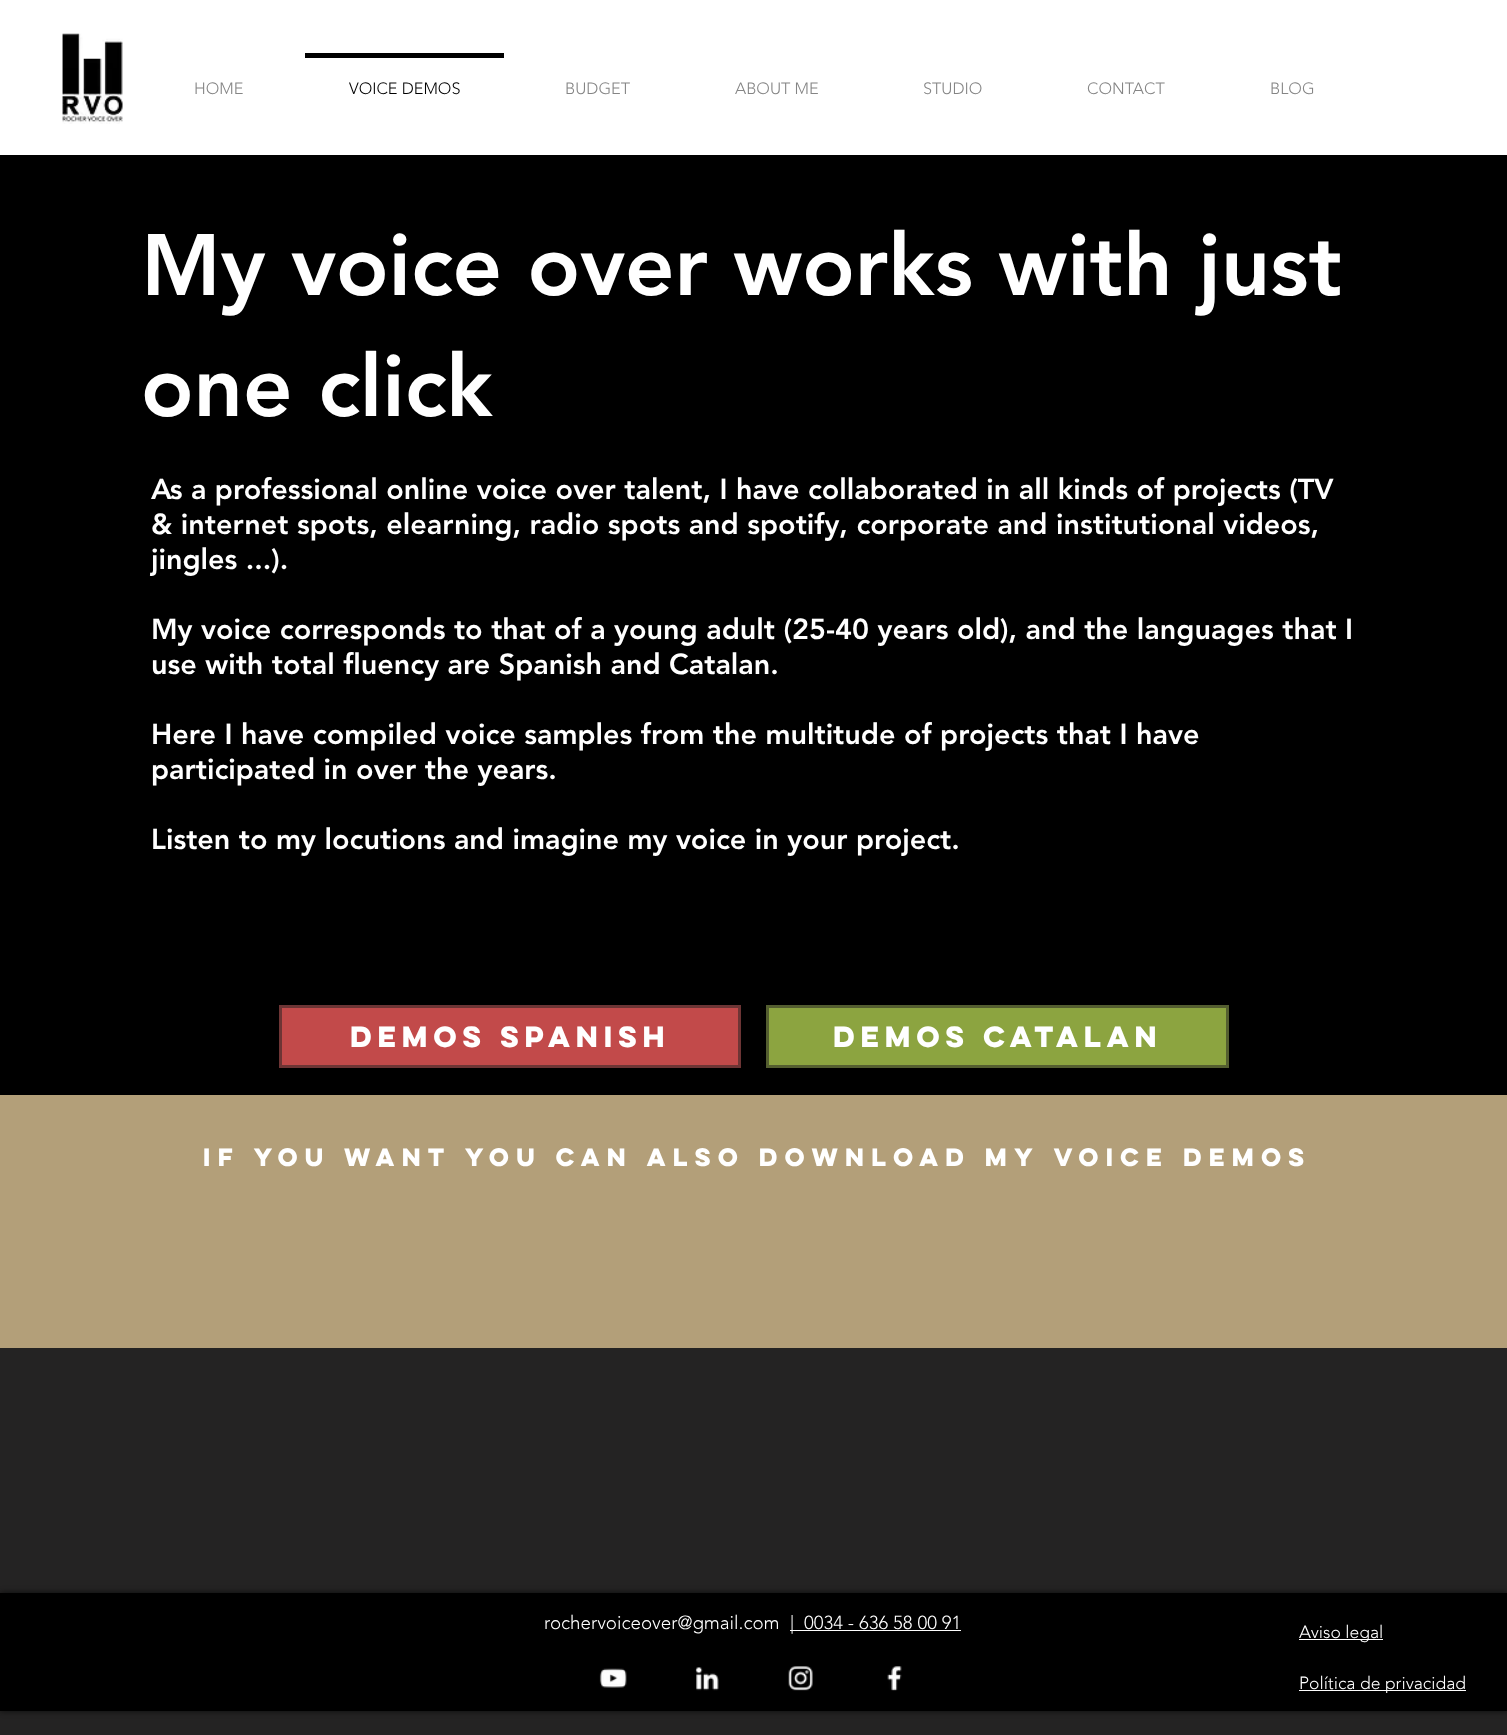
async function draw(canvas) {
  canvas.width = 1507
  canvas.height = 1735
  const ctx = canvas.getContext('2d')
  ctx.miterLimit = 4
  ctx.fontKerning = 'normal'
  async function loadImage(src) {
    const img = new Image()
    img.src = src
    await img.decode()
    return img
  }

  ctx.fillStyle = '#242323'
  ctx.fillRect(0, 0, 1507, 1735)
  ctx.fillStyle = '#fff'
  ctx.fillRect(0, 0, 1507, 155)
  ctx.drawImage(await loadImage('image0.png'), 62, 33, 61, 91)
  ctx.font = '300 16.25px "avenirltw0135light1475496"'
  ctx.fillStyle = '#858585'
  ctx.fillText('HOME', 194, 94)
  ctx.fillStyle = '#000'
  ctx.fillRect(305, 53, 199, 5)
  ctx.fillText('VOICE DEMOS', 349, 94)
  ctx.fillStyle = '#858585'
  ctx.fillText('BUDGET', 565, 94)
  ctx.fillText('ABOUT ME', 735, 94)
  ctx.fillText('STUDIO', 923, 94)
  ctx.fillText('CONTACT', 1087, 94)
  ctx.fillText('BLOG', 1270, 94)
  ctx.fillStyle = '#000'
  ctx.fillRect(0, 155, 1507, 940)
  ctx.font = '900 86.25px "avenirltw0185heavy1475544"'
  ctx.fillStyle = '#fff'
  ctx.fillText('My voice over works with just', 141, 295)
  ctx.fillText('one click', 141, 416)
  ctx.font = '900 28.75px "avenirltw0185heavy1475544"'
  ctx.fillText('As a professional online voice over talent, I have collaborated in all kinds of projects (TV', 151, 499)
  ctx.fillText('& internet spots, elearning, radio spots and spotify, corporate and institutional videos,', 151, 534)
  ctx.fillText('jingles ...).', 151, 569)
  ctx.fillText('My voice corresponds to that of a young adult (25-40 years old), and the languages that I', 151, 639)
  ctx.fillText('use with total fluency are Spanish and Catalan.', 151, 674)
  ctx.fillText('Here I have compiled voice samples from the multitude of projects that I have', 151, 744)
  ctx.fillText('participated in over the years.', 151, 779)
  ctx.fillText('Listen to my locutions and imagine my voice in your project.', 151, 849)
  ctx.fillStyle = '#c24a4a'
  ctx.beginPath()
  ctx.rect(280.5, 1006.5, 459, 60)
  ctx.fill()
  ctx.strokeStyle = '#6d3535'
  ctx.lineWidth = 3
  ctx.stroke()
  ctx.font = 'bold 26.25px "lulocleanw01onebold"'
  ctx.fillStyle = '#fff'
  ctx.fillText('DEMOS SPANISH', 350, 1047)
  ctx.fillStyle = '#8ca440'
  ctx.beginPath()
  ctx.rect(767.5, 1006.5, 460, 60)
  ctx.fill()
  ctx.strokeStyle = '#545e30'
  ctx.stroke()
  ctx.fillStyle = '#fff'
  ctx.fillText('DEMOS CATALAN', 833, 1047)
  ctx.fillStyle = '#b39f79'
  ctx.fillRect(0, 1095, 1507, 253)
  ctx.letterSpacing = '2.25px'
  ctx.font = 'bold 22.5px "lulocleanw01onebold"'
  ctx.fillStyle = '#fff'
  ctx.fillText('If you want you can also download my voice demos', 203, 1166)
  ctx.fillStyle = '#000000b3'
  ctx.filter = 'blur(3px)'
  ctx.beginPath()
  ctx.rect(0, 1593, 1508, 118)
  ctx.fill()
  ctx.filter = 'none'
  ctx.fillStyle = '#000'
  ctx.fillRect(0, 1593, 1507, 118)
  ctx.letterSpacing = '0px'
  ctx.font = '300 18.75px "avenirltw0135light1475496"'
  ctx.fillStyle = '#fff'
  ctx.fillText('rochervoiceover@gmail.com', 544, 1629)
  ctx.fillRect(790, 1630, 171, 1)
  ctx.fillText('|  0034 - 636 58 00 91', 790, 1629)
  ctx.fillRect(1299, 1639, 84, 1)
  ctx.font = '300 17.5px "avenirltw0135light1475496"'
  ctx.fillText('Aviso legal', 1299, 1638)
  ctx.drawImage(await loadImage('image1.png'), 599, 1668, 28, 20)
  ctx.drawImage(await loadImage('image2.png'), 695, 1667, 24, 24)
  ctx.drawImage(await loadImage('image3.png'), 788, 1666, 25, 25)
  ctx.drawImage(await loadImage('image4.png'), 887, 1666, 15, 25)
  ctx.fillRect(1299, 1690, 167, 1)
  ctx.fillText('Política de privacidad', 1299, 1689)
}

draw(document.querySelector('canvas'))
